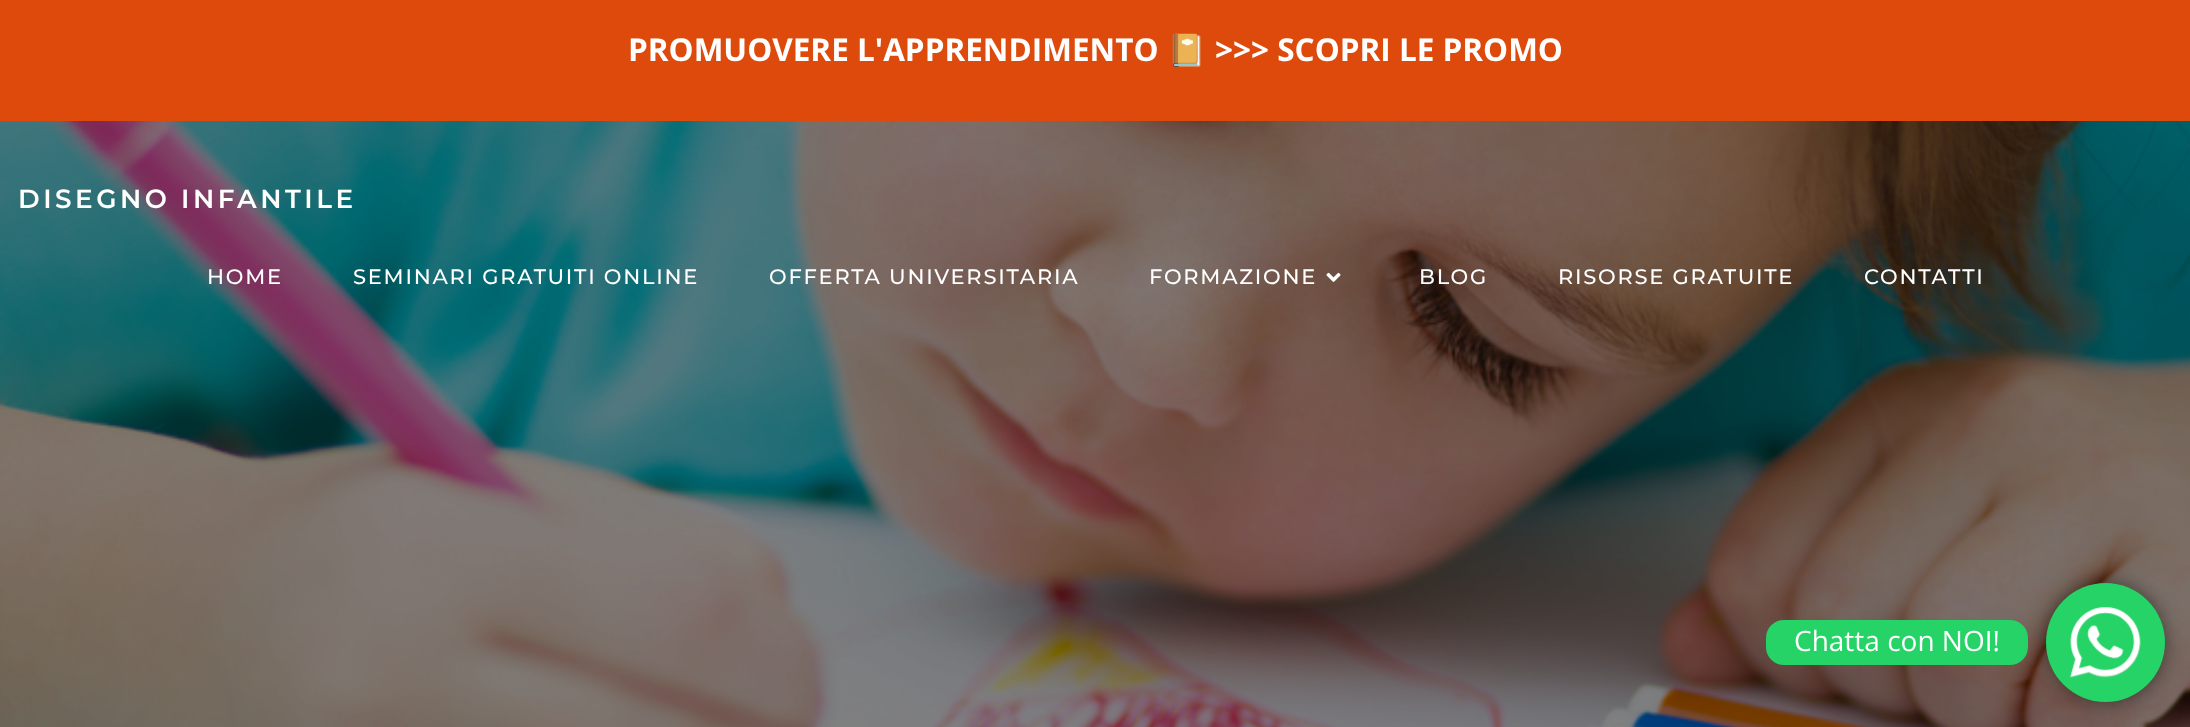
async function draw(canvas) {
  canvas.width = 2190
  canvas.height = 727
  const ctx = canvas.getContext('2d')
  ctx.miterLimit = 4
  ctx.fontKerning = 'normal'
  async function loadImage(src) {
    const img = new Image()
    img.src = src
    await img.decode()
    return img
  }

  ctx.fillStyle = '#fff'
  ctx.fillRect(0, 0, 2190, 727)
  ctx.fillStyle = '#dd4a0b'
  ctx.fillRect(0, 0, 2190, 121)
  ctx.font = 'bold 31.5px Open Sans'
  ctx.fillStyle = '#fff'
  ctx.fillText('PROMUOVERE L\'APPRENDIMENTO', 628, 61)
  ctx.font = 'bold 31.5px Noto Color Emoji'
  ctx.fillText('📔', 1167, 61)
  ctx.font = 'bold 31.5px Open Sans'
  ctx.fillText('>>> SCOPRI LE PROMO', 1215, 61)
  ctx.drawImage(await loadImage('image0.png'), 0, 121, 2190, 606)
  ctx.letterSpacing = '3.5px'
  ctx.font = '600 26.25px Montserrat'
  ctx.fillText('DISEGNO INFANTILE', 18, 208)
  ctx.letterSpacing = '1.75px'
  ctx.font = '500 21px Montserrat'
  ctx.fillText('HOME', 207, 284)
  ctx.fillText('SEMINARI GRATUITI ONLINE', 353, 284)
  ctx.fillText('OFFERTA UNIVERSITARIA', 769, 284)
  ctx.fillText('FORMAZIONE', 1149, 284)
  ctx.drawImage(await loadImage('image1.png'), 1326, 272, 15, 10)
  ctx.fillText('BLOG', 1419, 284)
  ctx.fillText('RISORSE GRATUITE', 1558, 284)
  ctx.fillText('CONTATTI', 1864, 284)
  ctx.fillStyle = '#25d366'
  ctx.beginPath()
  ctx.roundRect(1766, 620, 262, 45, 18)
  ctx.fill()
  ctx.letterSpacing = '0px'
  ctx.font = '28px Open Sans'
  ctx.fillStyle = '#fff'
  ctx.fillText('Chatta con NOI!', 1794, 651)
  ctx.fillStyle = '#00000080'
  ctx.filter = 'blur(9.5px)'
  ctx.beginPath()
  ctx.roundRect(2046, 583, 119, 119, 59.5)
  ctx.fill()
  ctx.filter = 'none'
  ctx.fillStyle = '#25d366'
  ctx.beginPath()
  ctx.arc(2105.5, 642.5, 59.5, 0, 2 * Math.PI)
  ctx.fill()
  ctx.drawImage(await loadImage('image2.png'), 2070, 607, 71, 71)
}

draw(document.querySelector('canvas'))
